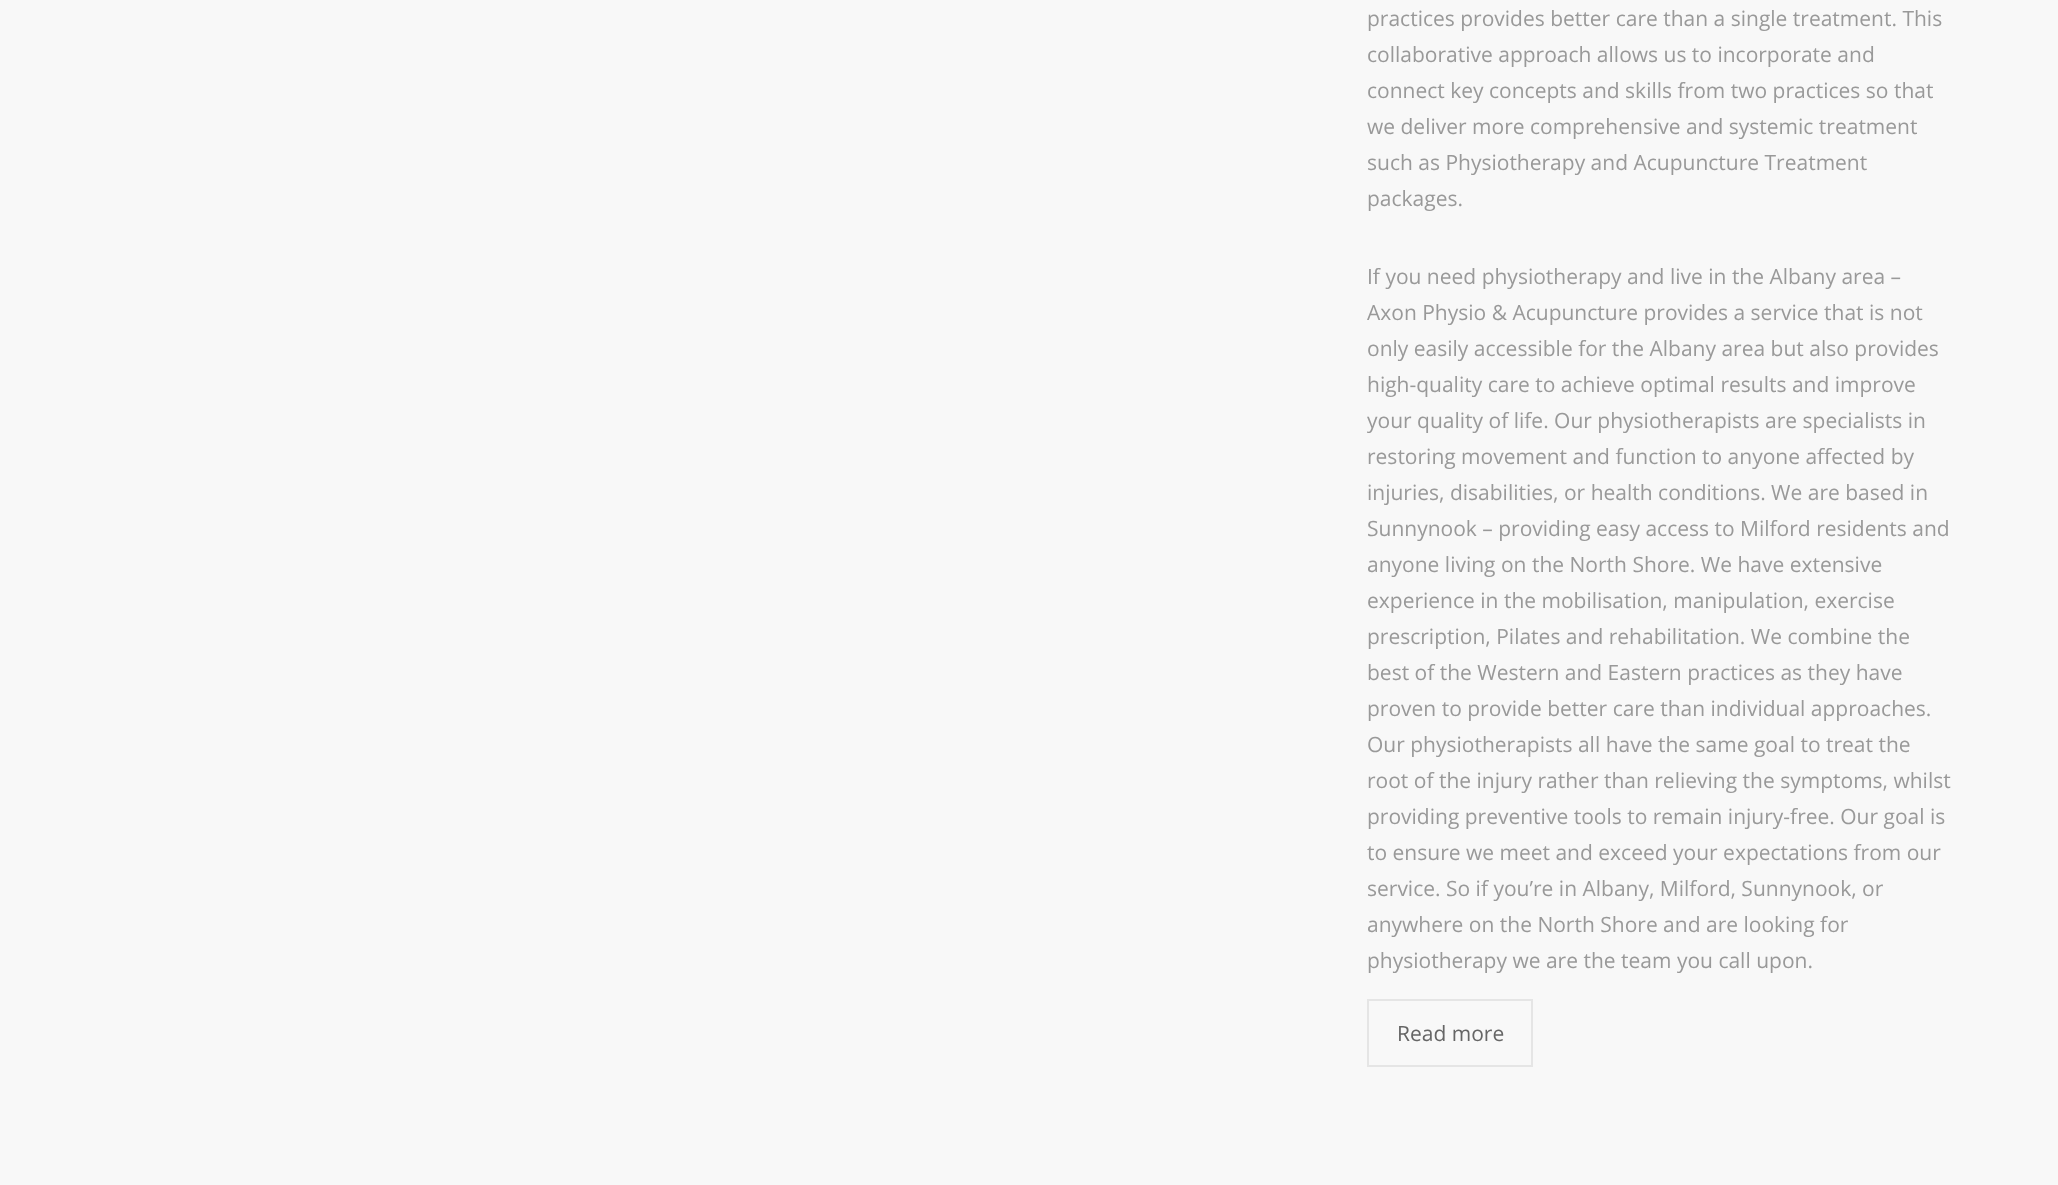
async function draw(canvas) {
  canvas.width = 2058
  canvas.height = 1185
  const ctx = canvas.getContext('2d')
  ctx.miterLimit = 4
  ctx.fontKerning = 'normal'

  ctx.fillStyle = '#f8f8f8'
  ctx.fillRect(0, 0, 2058, 1185)
  ctx.font = '21px Open Sans'
  ctx.fillStyle = '#999'
  ctx.fillText('practices provides better care than a single treatment. This', 1367, 26)
  ctx.fillText('collaborative approach allows us to incorporate and', 1367, 62)
  ctx.fillText('connect key concepts and skills from two practices so that', 1367, 98)
  ctx.fillText('we deliver more comprehensive and systemic treatment', 1367, 134)
  ctx.fillText('such as Physiotherapy and Acupuncture Treatment', 1367, 170)
  ctx.fillText('packages.', 1367, 206)
  ctx.fillText('If you need physiotherapy and live in the Albany area –', 1367, 284)
  ctx.fillText('Axon Physio & Acupuncture provides a service that is not', 1367, 320)
  ctx.fillText('only easily accessible for the Albany area but also provides', 1367, 356)
  ctx.fillText('high-quality care to achieve optimal results and improve', 1367, 392)
  ctx.fillText('your quality of life. Our physiotherapists are specialists in', 1367, 428)
  ctx.fillText('restoring movement and function to anyone affected by', 1367, 464)
  ctx.fillText('injuries, disabilities, or health conditions. We are based in', 1367, 500)
  ctx.fillText('Sunnynook – providing easy access to Milford residents and', 1367, 536)
  ctx.fillText('anyone living on the North Shore. We have extensive', 1367, 572)
  ctx.fillText('experience in the mobilisation, manipulation, exercise', 1367, 608)
  ctx.fillText('prescription, Pilates and rehabilitation. We combine the', 1367, 644)
  ctx.fillText('best of the Western and Eastern practices as they have', 1367, 680)
  ctx.fillText('proven to provide better care than individual approaches.', 1367, 716)
  ctx.fillText('Our physiotherapists all have the same goal to treat the', 1367, 752)
  ctx.fillText('root of the injury rather than relieving the symptoms, whilst', 1367, 788)
  ctx.fillText('providing preventive tools to remain injury-free. Our goal is', 1367, 824)
  ctx.fillText('to ensure we meet and exceed your expectations from our', 1367, 860)
  ctx.fillText('service. So if you’re in Albany, Milford, Sunnynook, or', 1367, 896)
  ctx.fillText('anywhere on the North Shore and are looking for', 1367, 932)
  ctx.fillText('physiotherapy we are the team you call upon.', 1367, 968)
  ctx.strokeStyle = '#e5e5e5'
  ctx.lineWidth = 2
  ctx.strokeRect(1368, 1000, 164, 66)
  ctx.fillStyle = '#666'
  ctx.fillText('Read more', 1397, 1041)
}

draw(document.querySelector('canvas'))
